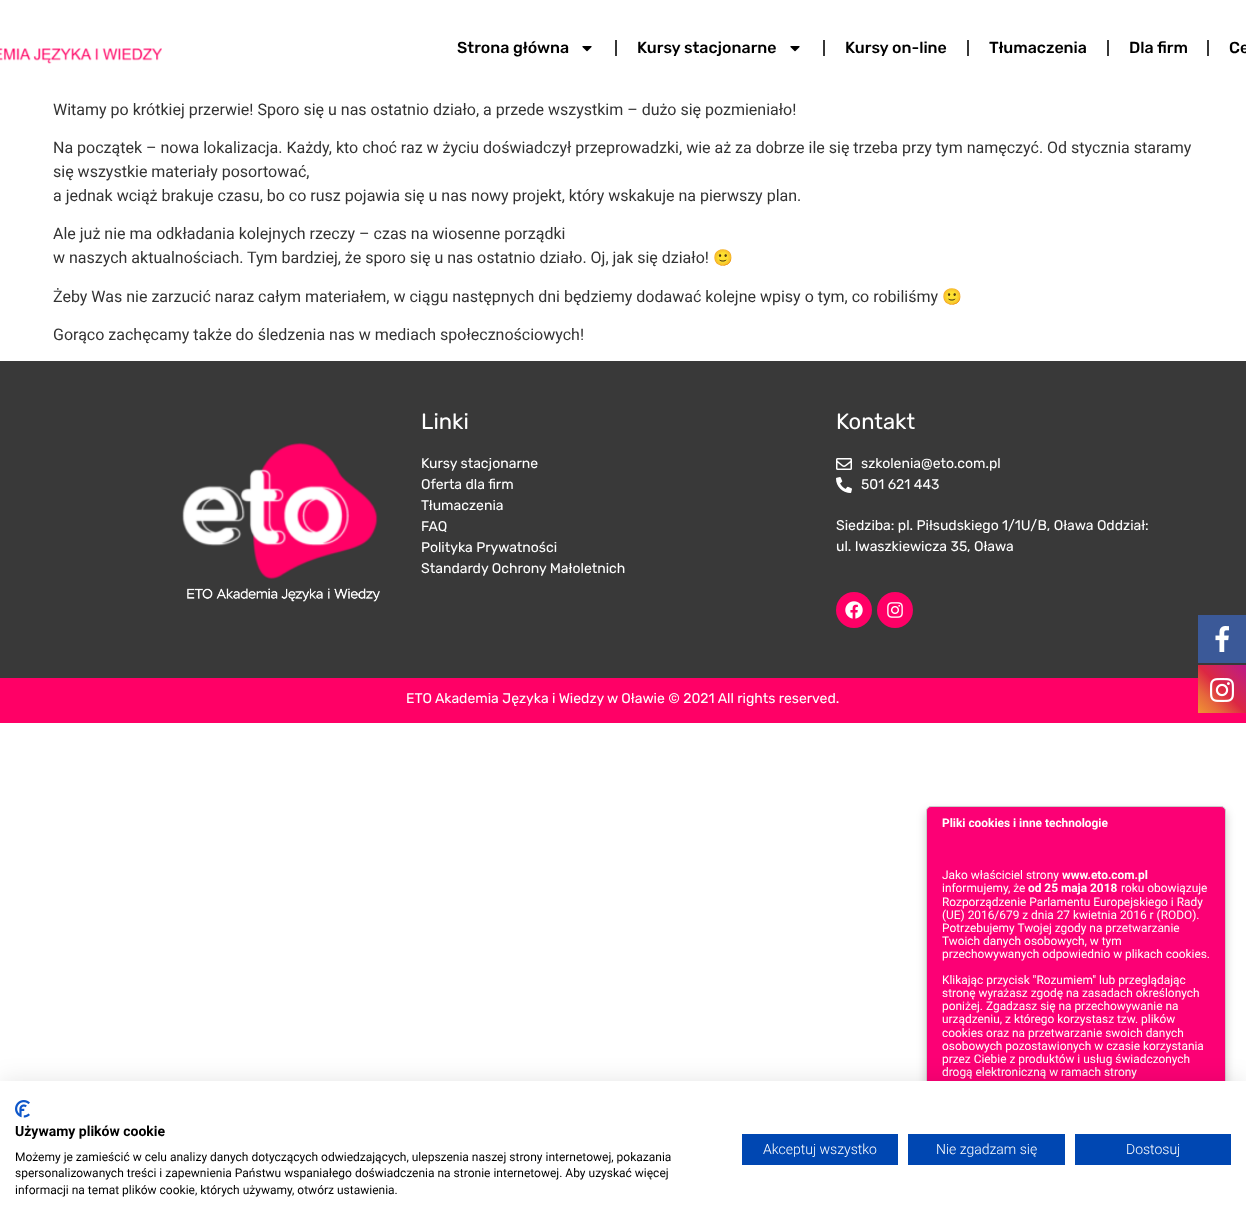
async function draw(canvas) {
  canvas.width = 1246
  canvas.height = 1226
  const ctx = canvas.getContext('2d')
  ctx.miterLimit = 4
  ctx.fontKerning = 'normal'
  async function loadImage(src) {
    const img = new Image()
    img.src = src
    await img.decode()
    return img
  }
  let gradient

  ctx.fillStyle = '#fff'
  ctx.fillRect(0, 0, 1246, 1226)
  ctx.drawImage(await loadImage('image0.png'), 0, 48, 162, 16)
  ctx.font = '500 16px Rubik'
  ctx.fillStyle = '#000'
  ctx.fillText('Strona główna', 457, 53)
  ctx.drawImage(await loadImage('image1.png'), 582, 46, 10, 6)
  ctx.fillStyle = '#373737'
  ctx.fillRect(615, 40, 2, 16)
  ctx.fillStyle = '#000'
  ctx.fillText('Kursy stacjonarne', 637, 53)
  ctx.drawImage(await loadImage('image1.png'), 790, 46, 10, 6)
  ctx.fillStyle = '#373737'
  ctx.fillRect(823, 40, 2, 16)
  ctx.fillStyle = '#000'
  ctx.fillText('Kursy on-line', 845, 53)
  ctx.fillStyle = '#373737'
  ctx.fillRect(967, 40, 2, 16)
  ctx.fillStyle = '#000'
  ctx.fillText('Tłumaczenia', 989, 53)
  ctx.fillStyle = '#373737'
  ctx.fillRect(1107, 40, 2, 16)
  ctx.fillStyle = '#000'
  ctx.fillText('Dla firm', 1129, 53)
  ctx.fillStyle = '#373737'
  ctx.fillRect(1207, 40, 2, 16)
  ctx.fillStyle = '#000'
  ctx.fillText('Ce', 1229, 53)
  ctx.font = '16px Roboto'
  ctx.fillStyle = '#333'
  ctx.fillText('Witamy po krótkiej przerwie! Sporo się u nas ostatnio działo, a przede wszystkim – dużo się pozmieniało!', 53, 115)
  ctx.fillText('Na początek – nowa lokalizacja. Każdy, kto choć raz w życiu doświadczył przeprowadzki, wie aż za dobrze ile się trzeba przy tym namęczyć. Od stycznia staramy', 53, 153)
  ctx.fillText('się wszystkie materiały posortować,', 53, 177)
  ctx.fillText('a jednak wciąż brakuje czasu, bo co rusz pojawia się u nas nowy projekt, który wskakuje na pierwszy plan.', 53, 201)
  ctx.fillText('Ale już nie ma odkładania kolejnych rzeczy – czas na wiosenne porządki', 53, 239)
  ctx.fillText('w naszych aktualnościach. Tym bardziej, że sporo się u nas ostatnio działo. Oj, jak się działo!', 53, 263)
  ctx.font = '16px Noto Color Emoji'
  ctx.fillText('🙂', 713, 263)
  ctx.font = '16px Roboto'
  ctx.fillText('Żeby Was nie zarzucić naraz całym materiałem, w ciągu następnych dni będziemy dodawać kolejne wpisy o tym, co robiliśmy', 53, 302)
  ctx.font = '16px Noto Color Emoji'
  ctx.fillText('🙂', 942, 302)
  ctx.font = '16px Roboto'
  ctx.fillText('Gorąco zachęcamy także do śledzenia nas w mediach społecznościowych!', 53, 340)
  ctx.fillStyle = '#393939'
  ctx.fillRect(0, 361, 1246, 317)
  ctx.drawImage(await loadImage('image2.png'), 182, 442, 198, 160)
  ctx.font = '22px Rubik'
  ctx.fillStyle = '#fff'
  ctx.fillText('Linki', 421, 429)
  ctx.font = '14px Rubik'
  ctx.fillText('Kursy stacjonarne', 421, 468)
  ctx.fillText('Oferta dla firm', 421, 489)
  ctx.fillText('Tłumaczenia', 421, 510)
  ctx.fillText('FAQ', 421, 531)
  ctx.fillText('Polityka Prywatności', 421, 552)
  ctx.fillText('Standardy Ochrony Małoletnich', 421, 573)
  ctx.font = '22px Rubik'
  ctx.fillText('Kontakt', 836, 429)
  ctx.drawImage(await loadImage('image3.png'), 836, 458, 16, 12)
  ctx.font = '14px Rubik'
  ctx.fillText('szkolenia@eto.com.pl', 861, 468)
  ctx.drawImage(await loadImage('image4.png'), 836, 477, 16, 16)
  ctx.fillText('501 621 443', 861, 489)
  ctx.fillText('Siedziba: pl. Piłsudskiego 1/1U/B, Oława Oddział:', 836, 530)
  ctx.fillText('ul. Iwaszkiewicza 35, Oława', 836, 551)
  ctx.fillStyle = '#f06'
  ctx.beginPath()
  ctx.arc(854, 610, 18, 0, 2 * Math.PI)
  ctx.fill()
  ctx.drawImage(await loadImage('image5.png'), 845, 601, 18, 18)
  ctx.beginPath()
  ctx.arc(895, 610, 18, 0, 2 * Math.PI)
  ctx.fill()
  ctx.drawImage(await loadImage('image6.png'), 887, 602, 16, 16)
  ctx.fillRect(0, 678, 1246, 45)
  ctx.fillStyle = '#fff'
  ctx.fillText('ETO Akademia Języka i Wiedzy w Oławie © 2021 All rights reserved.', 406, 703)
  ctx.fillStyle = '#3b5998'
  ctx.fillRect(1198, 615, 48, 48)
  ctx.drawImage(await loadImage('image7.png'), 1215, 626, 14, 26)
  gradient = ctx.createLinearGradient(1198, 713, 1246, 665)
  gradient.addColorStop(0, '#f09433')
  gradient.addColorStop(0.25, '#e6683c')
  gradient.addColorStop(0.5, '#dc2743')
  gradient.addColorStop(0.75, '#cc2366')
  gradient.addColorStop(1, '#bc1888')
  ctx.fillStyle = gradient
  ctx.fillRect(1198, 665, 48, 48)
  ctx.drawImage(await loadImage('image8.png'), 1210, 678, 24, 24)
  ctx.fillStyle = '#00000033'
  ctx.filter = 'blur(5px)'
  ctx.beginPath()
  ctx.roundRect(926, 811, 300, 400, 5)
  ctx.fill()
  ctx.filter = 'none'
  ctx.fillStyle = '#fc0075'
  ctx.beginPath()
  ctx.roundRect(926.5, 806.5, 299, 399, 4.5)
  ctx.fill()
  ctx.strokeStyle = '#ccc'
  ctx.stroke()
  ctx.font = 'bold 11.9px Roboto'
  ctx.fillStyle = '#fff'
  ctx.fillText('Pliki cookies i inne technologie', 942, 827)
  ctx.font = '11.9px Roboto'
  ctx.fillText('Jako właściciel strony', 942, 879)
  ctx.font = 'bold 11.9px Roboto'
  ctx.fillText('www.eto.com.pl', 1062, 879)
  ctx.font = '11.9px Roboto'
  ctx.fillText('informujemy, że', 942, 892)
  ctx.font = 'bold 11.9px Roboto'
  ctx.fillText('od 25 maja 2018', 1028, 892)
  ctx.font = '11.9px Roboto'
  ctx.fillText('roku obowiązuje', 1121, 892)
  ctx.fillText('Rozporządzenie Parlamentu Europejskiego i Rady', 942, 906)
  ctx.fillText('(UE) 2016/679 z dnia 27 kwietnia 2016 r (RODO).', 942, 919)
  ctx.fillText('Potrzebujemy Twojej zgody na przetwarzanie', 942, 932)
  ctx.fillText('Twoich danych osobowych, w tym', 942, 945)
  ctx.fillText('przechowywanych odpowiednio w plikach cookies.', 942, 958)
  ctx.fillText('Klikając przycisk "Rozumiem" lub przeglądając', 942, 984)
  ctx.fillText('stronę wyrażasz zgodę na zasadach określonych', 942, 997)
  ctx.fillText('poniżej. Zgadzasz się na przechowywanie na', 942, 1010)
  ctx.fillText('urządzeniu, z którego korzystasz tzw. plików', 942, 1023)
  ctx.fillText('cookies oraz na przetwarzanie swoich danych', 942, 1037)
  ctx.fillText('osobowych pozostawionych w czasie korzystania', 942, 1050)
  ctx.fillText('przez Ciebie z produktów i usług świadczonych', 942, 1063)
  ctx.fillText('drogą elektroniczną w ramach strony', 942, 1076)
  ctx.fillStyle = '#0000001a'
  ctx.filter = 'blur(12px)'
  ctx.beginPath()
  ctx.rect(0, 1081, 1246, 145)
  ctx.fill()
  ctx.filter = 'none'
  ctx.fillStyle = '#fff'
  ctx.fillRect(0, 1081, 1246, 145)
  ctx.drawImage(await loadImage('image9.png'), 15, 1100, 15, 18)
  ctx.font = 'bold 14px Roboto'
  ctx.fillStyle = '#000'
  ctx.fillText('Używamy plików cookie', 15, 1136)
  ctx.font = '12px Roboto'
  ctx.fillText('Możemy je zamieścić w celu analizy danych dotyczących odwiedzających, ulepszenia naszej strony internetowej, pokazania', 15, 1161)
  ctx.fillText('spersonalizowanych treści i zapewnienia Państwu wspaniałego doświadczenia na stronie internetowej. Aby uzyskać więcej', 15, 1177)
  ctx.fillText('informacji na temat plików cookie, których używamy, otwórz ustawienia.', 15, 1194)
  ctx.fillStyle = '#0047b2'
  ctx.fillRect(742, 1134, 156, 31)
  ctx.font = '300 14px Roboto'
  ctx.fillStyle = '#fff'
  ctx.fillText('Akceptuj wszystko', 763, 1154)
  ctx.fillStyle = '#0047b2'
  ctx.fillRect(908, 1134, 157, 31)
  ctx.fillStyle = '#fff'
  ctx.fillText('Nie zgadzam się', 936, 1154)
  ctx.fillStyle = '#0047b2'
  ctx.fillRect(1075, 1134, 156, 31)
  ctx.fillStyle = '#fff'
  ctx.fillText('Dostosuj', 1126, 1154)
}

draw(document.querySelector('canvas'))
